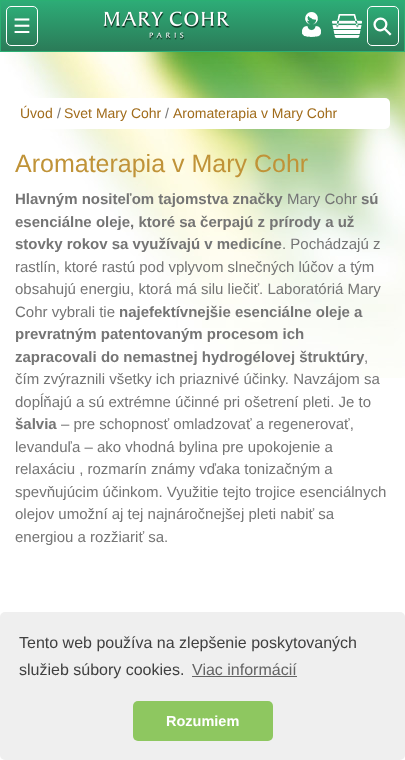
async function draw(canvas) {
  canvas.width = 405
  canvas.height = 760
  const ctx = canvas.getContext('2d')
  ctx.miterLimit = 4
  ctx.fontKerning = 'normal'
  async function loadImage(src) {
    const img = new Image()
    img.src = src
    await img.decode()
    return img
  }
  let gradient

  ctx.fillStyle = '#fff'
  ctx.fillRect(0, 0, 405, 760)
  ctx.drawImage(await loadImage('image0.png'), 0, 52, 405, 326)
  gradient = ctx.createLinearGradient(203, 1, 203, 51)
  gradient.addColorStop(0, '#2dac77')
  gradient.addColorStop(1, '#2b7b58')
  ctx.fillStyle = gradient
  ctx.fillRect(1, 1, 403, 50)
  ctx.strokeStyle = '#2baf73'
  ctx.strokeRect(0.5, 0.5, 404, 51)
  ctx.save()
  ctx.beginPath()
  ctx.roundRect(6, 6, 32, 40, 5)
  ctx.clip()
  gradient = ctx.createLinearGradient(22, 7, 22, 45)
  gradient.addColorStop(0, '#2dac77')
  gradient.addColorStop(1, '#2b7b58')
  ctx.fillStyle = gradient
  ctx.fillRect(6, 7, 32, 38)
  ctx.restore()
  ctx.beginPath()
  ctx.roundRect(6.5, 6.5, 31, 39, 4.5)
  ctx.strokeStyle = '#fff'
  ctx.stroke()
  ctx.font = '20px DejaVu Sans'
  ctx.fillStyle = '#fff'
  ctx.fillText('☰', 13, 33)
  ctx.drawImage(await loadImage('image1.png'), 103, 11, 127, 29)
  ctx.drawImage(await loadImage('image2.png'), 302, 12, 19, 25)
  ctx.drawImage(await loadImage('image3.png'), 332, 14, 30, 24)
  ctx.save()
  ctx.beginPath()
  ctx.roundRect(367, 6, 32, 40, 5)
  ctx.clip()
  gradient = ctx.createLinearGradient(383, 7, 383, 45)
  gradient.addColorStop(0, '#2dac77')
  gradient.addColorStop(1, '#2b7b58')
  ctx.fillStyle = gradient
  ctx.fillRect(367, 7, 32, 38)
  ctx.restore()
  ctx.beginPath()
  ctx.roundRect(367.5, 6.5, 31, 39, 4.5)
  ctx.stroke()
  ctx.font = '25px DejaVu Sans'
  ctx.save()
  ctx.translate(382, 39)
  ctx.rotate(-45 * Math.PI / 180)
  ctx.fillText('⚲', 0, 0)
  ctx.restore()
  ctx.beginPath()
  ctx.roundRect(15, 98, 375, 31, 5)
  ctx.fill()
  ctx.font = '14px Liberation Sans'
  ctx.fillStyle = '#a06b1a'
  ctx.fillText('Úvod', 20, 118)
  ctx.fillStyle = '#757575'
  ctx.fillText('/', 57, 118)
  ctx.fillStyle = '#a06b1a'
  ctx.fillText('Svet Mary Cohr', 64, 118)
  ctx.fillStyle = '#757575'
  ctx.fillText('/', 165, 118)
  ctx.fillStyle = '#a06b1a'
  ctx.fillText('Aromaterapia v Mary Cohr', 173, 118)
  ctx.font = '25px Liberation Sans'
  ctx.fillStyle = '#c09338'
  ctx.fillText('Aromaterapia v Mary Cohr', 15, 172)
  ctx.font = 'bold 15px Liberation Sans'
  ctx.fillStyle = '#757575'
  ctx.fillText('Hlavným nositeľom tajomstva značky', 15, 204)
  ctx.font = '15px Liberation Sans'
  ctx.fillText('Mary Cohr', 287, 204)
  ctx.font = 'bold 15px Liberation Sans'
  ctx.fillText('sú', 361, 204)
  ctx.fillText('esenciálne oleje, ktoré sa čerpajú z prírody a už', 15, 227)
  ctx.fillText('stovky rokov sa využívajú v medicíne', 15, 249)
  ctx.font = '15px Liberation Sans'
  ctx.fillText('. Pochádzajú z', 282, 249)
  ctx.fillText('rastlín, ktoré rastú pod vplyvom slnečných lúčov a tým', 15, 272)
  ctx.fillText('obsahujú energiu, ktorá má silu liečiť. Laboratóriá Mary', 15, 294)
  ctx.fillText('Cohr vybrali tie', 15, 317)
  ctx.font = 'bold 15px Liberation Sans'
  ctx.fillText('najefektívnejšie esenciálne oleje a', 119, 317)
  ctx.fillText('prevratným patentovaným procesom ich', 15, 339)
  ctx.fillText('zapracovali do nemastnej hydrogélovej štruktúry', 15, 362)
  ctx.font = '15px Liberation Sans'
  ctx.fillText(',', 364, 362)
  ctx.fillText('čím zvýraznili všetky ich priaznivé účinky. Navzájom sa', 15, 384)
  ctx.fillText('dopĺňajú a sú extrémne účinné pri ošetrení pleti. Je to', 15, 407)
  ctx.font = 'bold 15px Liberation Sans'
  ctx.fillText('šalvia', 15, 429)
  ctx.font = '15px Liberation Sans'
  ctx.fillText('– pre schopnosť omladzovať a regenerovať,', 61, 429)
  ctx.fillText('levanduľa – ako vhodná bylina pre upokojenie a', 15, 452)
  ctx.fillText('relaxáciu , rozmarín známy vďaka tonizačným a', 15, 474)
  ctx.fillText('spevňujúcim účinkom. Využitie tejto trojice esenciálnych', 15, 497)
  ctx.fillText('olejov umožní aj tej najnáročnejšej pleti nabiť sa', 15, 519)
  ctx.fillText('energiou a rozžiariť sa.', 15, 542)
  ctx.fillStyle = '#efefef'
  ctx.beginPath()
  ctx.roundRect(0, 612, 405, 148, 5)
  ctx.fill()
  ctx.font = '16px Liberation Sans'
  ctx.fillStyle = '#404040'
  ctx.fillText('Tento web používa na zlepšenie poskytovaných', 19, 648)
  ctx.fillText('služieb súbory cookies.', 19, 675)
  ctx.fillStyle = '#636363'
  ctx.fillText('Viac informácií', 192, 675)
  ctx.fillRect(192, 676, 105, 1)
  ctx.fillStyle = '#8ec760'
  ctx.beginPath()
  ctx.roundRect(133, 701, 140, 40, 5)
  ctx.fill()
  ctx.font = 'bold 14.5px Liberation Sans'
  ctx.fillStyle = '#fff'
  ctx.fillText('Rozumiem', 166, 726)
}

draw(document.querySelector('canvas'))
